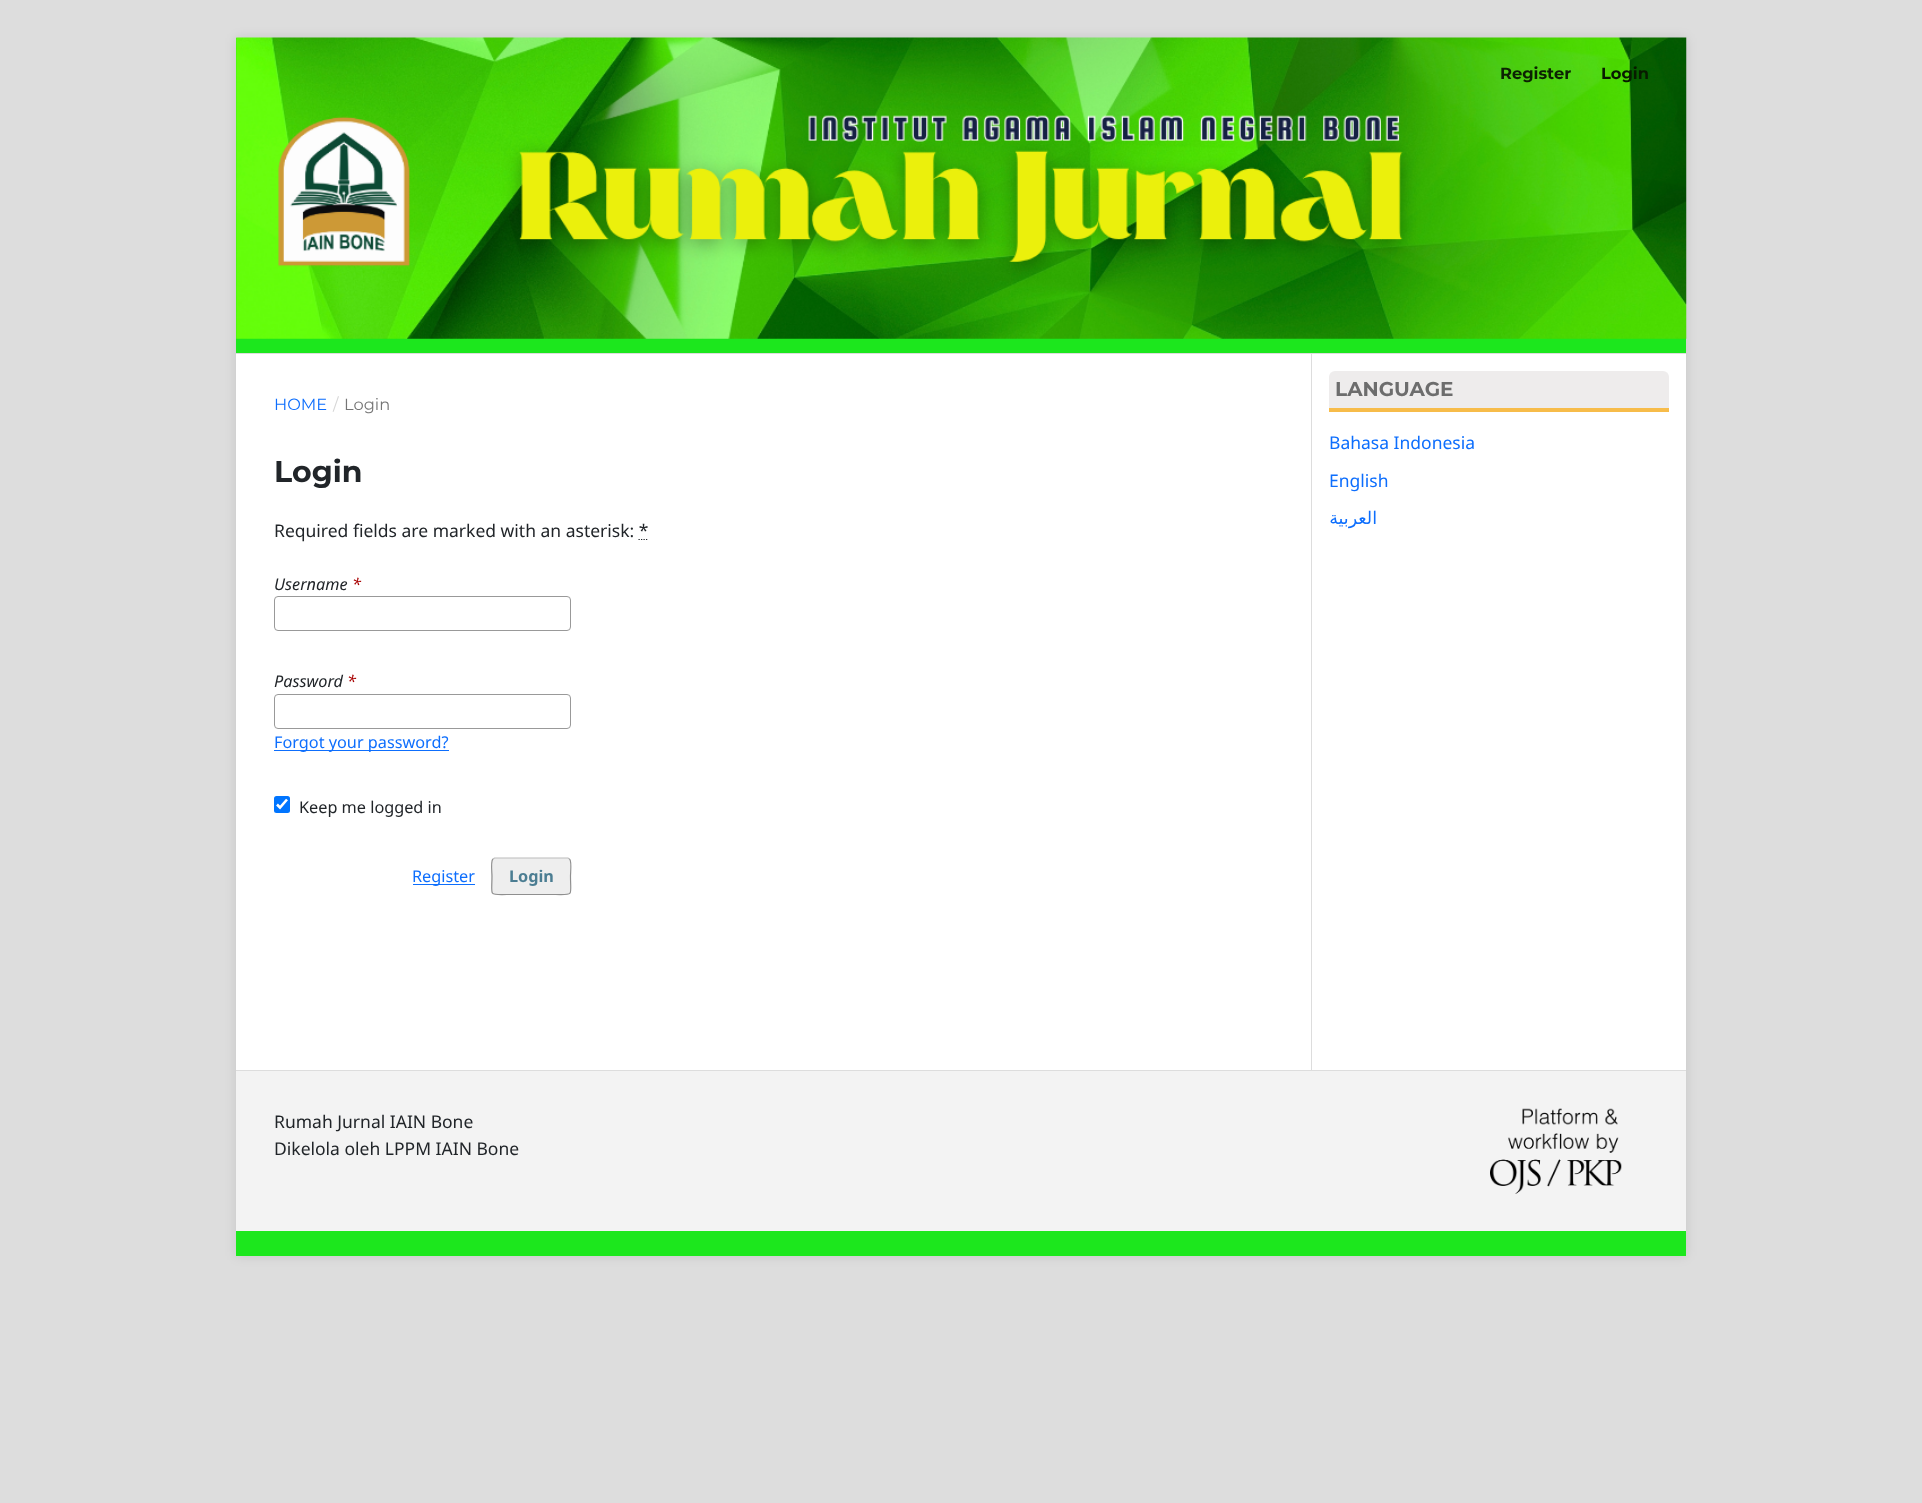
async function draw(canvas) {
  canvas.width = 1922
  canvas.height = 1503
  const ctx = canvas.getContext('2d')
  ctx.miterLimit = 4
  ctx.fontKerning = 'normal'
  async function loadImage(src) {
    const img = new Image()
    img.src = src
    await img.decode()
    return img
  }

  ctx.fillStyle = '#ddd'
  ctx.fillRect(0, 0, 1922, 1503)
  ctx.fillStyle = '#0000001a'
  ctx.filter = 'blur(6px)'
  ctx.beginPath()
  ctx.rect(236, 38, 1450, 1218)
  ctx.fill()
  ctx.filter = 'none'
  ctx.fillStyle = '#fff'
  ctx.fillRect(236, 354, 1450, 716)
  ctx.fillStyle = '#1ce71d'
  ctx.fillRect(236, 38, 1450, 315)
  ctx.fillStyle = '#ddd'
  ctx.fillRect(236, 353, 1450, 1)
  ctx.drawImage(await loadImage('image0.png'), 236, 37, 1451, 302)
  ctx.font = 'bold 16.25px Montserrat'
  ctx.fillStyle = '#0c2103'
  ctx.fillText('Register', 1500, 79)
  ctx.fillStyle = '#081b00'
  ctx.fillText('Login', 1601, 79)
  ctx.font = '16.25px Montserrat'
  ctx.fillStyle = '#0d6efd'
  ctx.fillText('HOME', 274, 410)
  ctx.fillStyle = '#d6d6d6'
  ctx.fillText('/', 333, 410)
  ctx.fillStyle = '#757575'
  ctx.fillText('Login', 344, 410)
  ctx.font = 'bold 30px Montserrat'
  ctx.fillStyle = '#212529'
  ctx.fillText('Login', 274, 482)
  ctx.font = '17.5px Noto Sans'
  ctx.fillText('Required fields are marked with an asterisk: *', 274, 537)
  ctx.beginPath()
  ctx.moveTo(638.5, 539.5)
  ctx.lineTo(648, 539.5)
  ctx.strokeStyle = '#212529'
  ctx.lineWidth = 1.2
  ctx.setLineDash([1.25, 1.25])
  ctx.stroke()
  ctx.font = 'italic 16.25px Noto Sans'
  ctx.fillText('Username', 274, 590)
  ctx.fillStyle = '#a80000'
  ctx.fillText('*', 352, 590)
  ctx.beginPath()
  ctx.roundRect(274.5, 596.5, 296, 34, 3.5)
  ctx.strokeStyle = '#999'
  ctx.lineWidth = 1
  ctx.setLineDash([])
  ctx.stroke()
  ctx.fillStyle = '#212529'
  ctx.fillText('Password', 274, 687)
  ctx.fillStyle = '#a80000'
  ctx.fillText('*', 347, 687)
  ctx.beginPath()
  ctx.roundRect(274.5, 694.5, 296, 34, 3.5)
  ctx.stroke()
  ctx.fillStyle = '#0d6efd'
  ctx.fillRect(274, 750, 175, 1)
  ctx.font = '16.25px Noto Sans'
  ctx.fillText('Forgot your password?', 274, 748)
  ctx.fillStyle = '#0075ff'
  ctx.beginPath()
  ctx.roundRect(274, 796, 16, 17, 2.5)
  ctx.fill()
  ctx.beginPath()
  ctx.moveTo(277, 804.5)
  ctx.lineTo(280, 807.5)
  ctx.lineTo(287, 799.5)
  ctx.strokeStyle = '#fff'
  ctx.lineWidth = 2.6
  ctx.stroke()
  ctx.fillStyle = '#212529'
  ctx.fillText('Keep me logged in', 299, 813)
  ctx.fillStyle = '#0d6efd'
  ctx.fillRect(413, 884, 62, 1)
  ctx.fillText('Register', 412, 882)
  ctx.fillStyle = '#eee'
  ctx.beginPath()
  ctx.roundRect(491, 858, 80, 37, 4)
  ctx.fill()
  ctx.beginPath()
  ctx.moveTo(493, 859)
  ctx.lineTo(494.5, 858)
  ctx.lineTo(568, 858)
  ctx.lineTo(569.5, 859)
  ctx.strokeStyle = '#bbb'
  ctx.lineWidth = 1.2
  ctx.stroke()
  ctx.beginPath()
  ctx.moveTo(569.5, 859)
  ctx.bezierCurveTo(572, 861, 570.5, 873, 570.5, 876)
  ctx.bezierCurveTo(570.5, 896.5, 574.5, 894.5, 555.5, 894.5)
  ctx.lineTo(507, 894.5)
  ctx.bezierCurveTo(488, 894.5, 492, 896.5, 492, 876)
  ctx.bezierCurveTo(492, 873, 490.5, 861, 493, 859)
  ctx.strokeStyle = '#00000066'
  ctx.stroke()
  ctx.font = 'bold 16.25px Noto Sans'
  ctx.fillStyle = '#4b7d92'
  ctx.fillText('Login', 509, 882)
  ctx.fillStyle = '#ddd'
  ctx.fillRect(1311, 354, 1, 716)
  ctx.fillStyle = '#eeecec'
  ctx.beginPath()
  ctx.roundRect(1329, 371, 340, 40, [6, 6, 0, 0])
  ctx.fill()
  ctx.fillStyle = '#f7bc4a'
  ctx.fillRect(1329, 408, 340, 4)
  ctx.font = 'bold 20px Montserrat'
  ctx.fillStyle = '#6d6d6d'
  ctx.fillText('LANGUAGE', 1335, 396)
  ctx.font = '17.5px Noto Sans'
  ctx.fillStyle = '#0d6efd'
  ctx.fillText('Bahasa Indonesia', 1329, 449)
  ctx.fillText('English', 1329, 487)
  ctx.direction = 'rtl'
  ctx.font = '17.5px DejaVu Sans'
  ctx.fillText('العربية', 1377, 524)
  ctx.fillStyle = '#f3f3f3'
  ctx.fillRect(236, 1071, 1450, 160)
  ctx.fillStyle = '#ddd'
  ctx.fillRect(236, 1070, 1450, 1)
  ctx.fillStyle = '#1ce71d'
  ctx.fillRect(236, 1231, 1450, 25)
  ctx.direction = 'ltr'
  ctx.font = '17.5px Noto Sans'
  ctx.fillStyle = '#212529'
  ctx.fillText('Rumah Jurnal IAIN Bone', 274, 1128)
  ctx.fillText('Dikelola oleh LPPM IAIN Bone', 274, 1155)
  ctx.drawImage(await loadImage('image1.png'), 1490, 1108, 132, 86)
}

draw(document.querySelector('canvas'))
